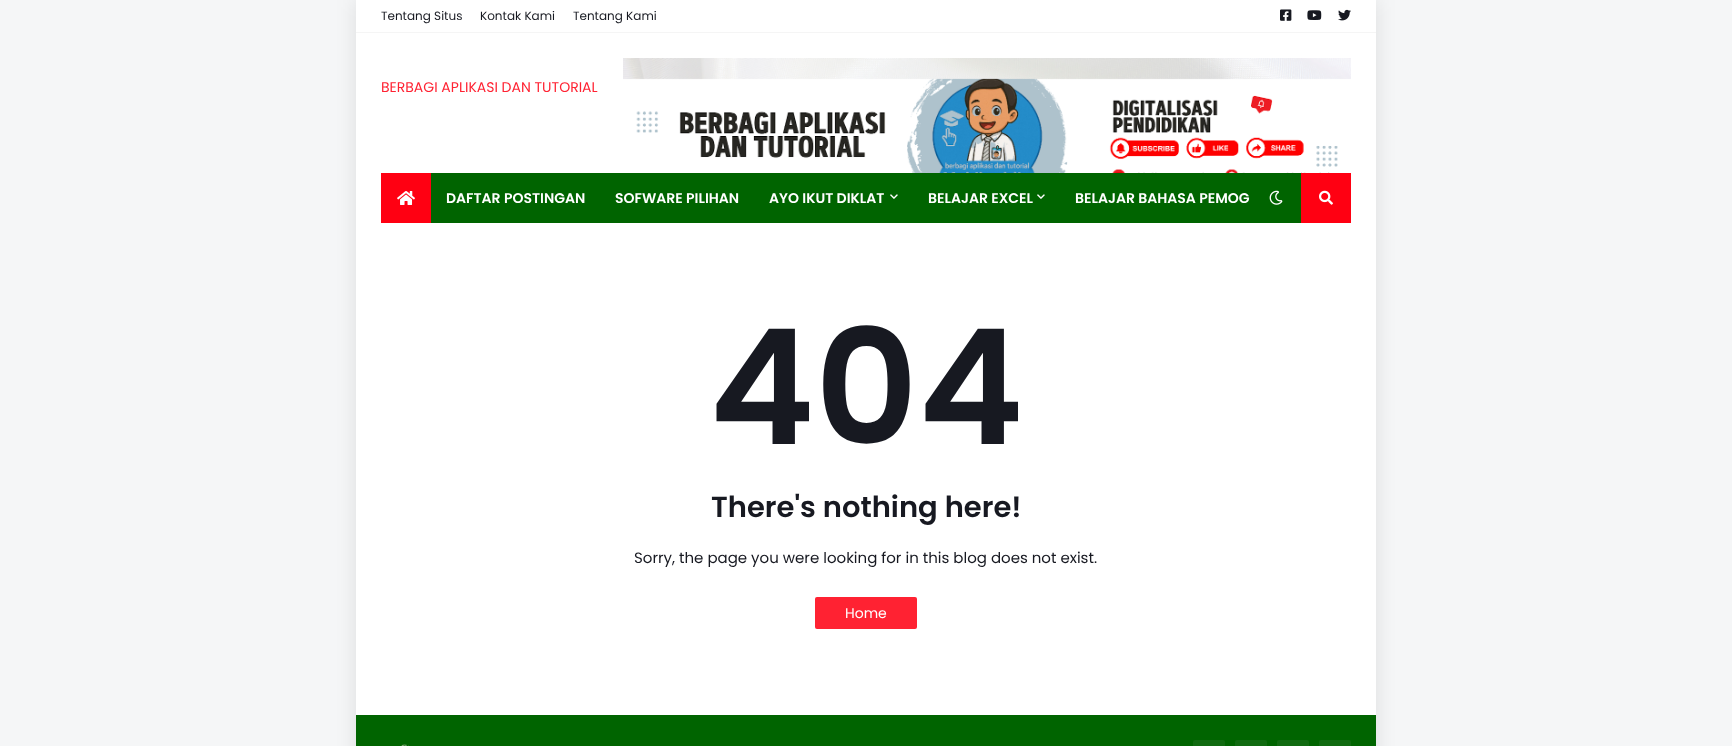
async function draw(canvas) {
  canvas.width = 1732
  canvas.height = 746
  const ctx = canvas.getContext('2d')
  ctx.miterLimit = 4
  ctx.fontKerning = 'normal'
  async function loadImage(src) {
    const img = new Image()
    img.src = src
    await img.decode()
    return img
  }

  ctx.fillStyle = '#f5f6f7'
  ctx.fillRect(0, 0, 1732, 746)
  ctx.fillStyle = '#0000001a'
  ctx.filter = 'blur(10px)'
  ctx.beginPath()
  ctx.rect(356, 0, 1020, 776)
  ctx.fill()
  ctx.filter = 'none'
  ctx.fillStyle = '#fff'
  ctx.fillRect(356, 0, 1020, 715)
  ctx.fillStyle = '#f5f5f5'
  ctx.fillRect(356, 32, 1020, 1)
  ctx.font = '12px Poppins'
  ctx.fillStyle = '#171921'
  ctx.fillText('Tentang Situs', 381, 20)
  ctx.fillText('Kontak Kami', 480, 20)
  ctx.fillText('Tentang Kami', 573, 20)
  ctx.drawImage(await loadImage('image0.png'), 1280, 9, 12, 12)
  ctx.drawImage(await loadImage('image1.png'), 1307, 10, 15, 10)
  ctx.drawImage(await loadImage('image2.png'), 1338, 9, 13, 12)
  ctx.font = '14px Poppins'
  ctx.fillStyle = '#ff2232'
  ctx.fillText('BERBAGI APLIKASI DAN TUTORIAL', 381, 92)
  ctx.drawImage(await loadImage('image3.png'), 623, 58, 728, 115)
  ctx.fillStyle = '#006400'
  ctx.fillRect(431, 173, 870, 50)
  ctx.fillStyle = '#ff0012'
  ctx.fillRect(381, 173, 50, 50)
  ctx.drawImage(await loadImage('image4.png'), 397, 191, 18, 14)
  ctx.font = '600 14px Poppins'
  ctx.fillStyle = '#fff'
  ctx.fillText('DAFTAR POSTINGAN', 446, 203)
  ctx.fillText('SOFWARE PILIHAN', 615, 203)
  ctx.fillText('AYO IKUT DIKLAT', 769, 203)
  ctx.drawImage(await loadImage('image5.png'), 890, 194, 8, 5)
  ctx.fillText('BELAJAR EXCEL', 928, 203)
  ctx.drawImage(await loadImage('image5.png'), 1037, 194, 8, 5)
  ctx.fillText('BELAJAR BAHASA PEMOG', 1075, 203)
  ctx.drawImage(await loadImage('image6.png'), 1269, 190, 14, 15)
  ctx.fillStyle = '#ff0012'
  ctx.fillRect(1301, 173, 50, 50)
  ctx.drawImage(await loadImage('image7.png'), 1319, 190, 14, 15)
  ctx.font = '600 160px Poppins'
  ctx.fillStyle = '#171921'
  ctx.fillText('404', 709, 444)
  ctx.font = '600 29px Poppins'
  ctx.fillText('There\'s nothing here!', 711, 517)
  ctx.font = '15px Poppins'
  ctx.fillText('Sorry, the page you were looking for in this blog does not exist.', 634, 563)
  ctx.fillStyle = '#ff2232'
  ctx.beginPath()
  ctx.roundRect(815, 597, 102, 32, 2)
  ctx.fill()
  ctx.font = '14px Poppins'
  ctx.fillStyle = '#fff'
  ctx.fillText('Home', 845, 618)
  ctx.fillStyle = '#006400'
  ctx.fillRect(356, 715, 1020, 31)
  ctx.drawImage(await loadImage('image8.png'), 401, 744, 8, 2)
  ctx.fillStyle = '#106a10'
  ctx.beginPath()
  ctx.roundRect(1193, 740, 32, 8, 2)
  ctx.fill()
  ctx.beginPath()
  ctx.roundRect(1235, 740, 32, 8, 2)
  ctx.fill()
  ctx.beginPath()
  ctx.roundRect(1277, 740, 32, 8, 2)
  ctx.fill()
  ctx.beginPath()
  ctx.roundRect(1319, 740, 32, 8, 2)
  ctx.fill()
}

draw(document.querySelector('canvas'))
